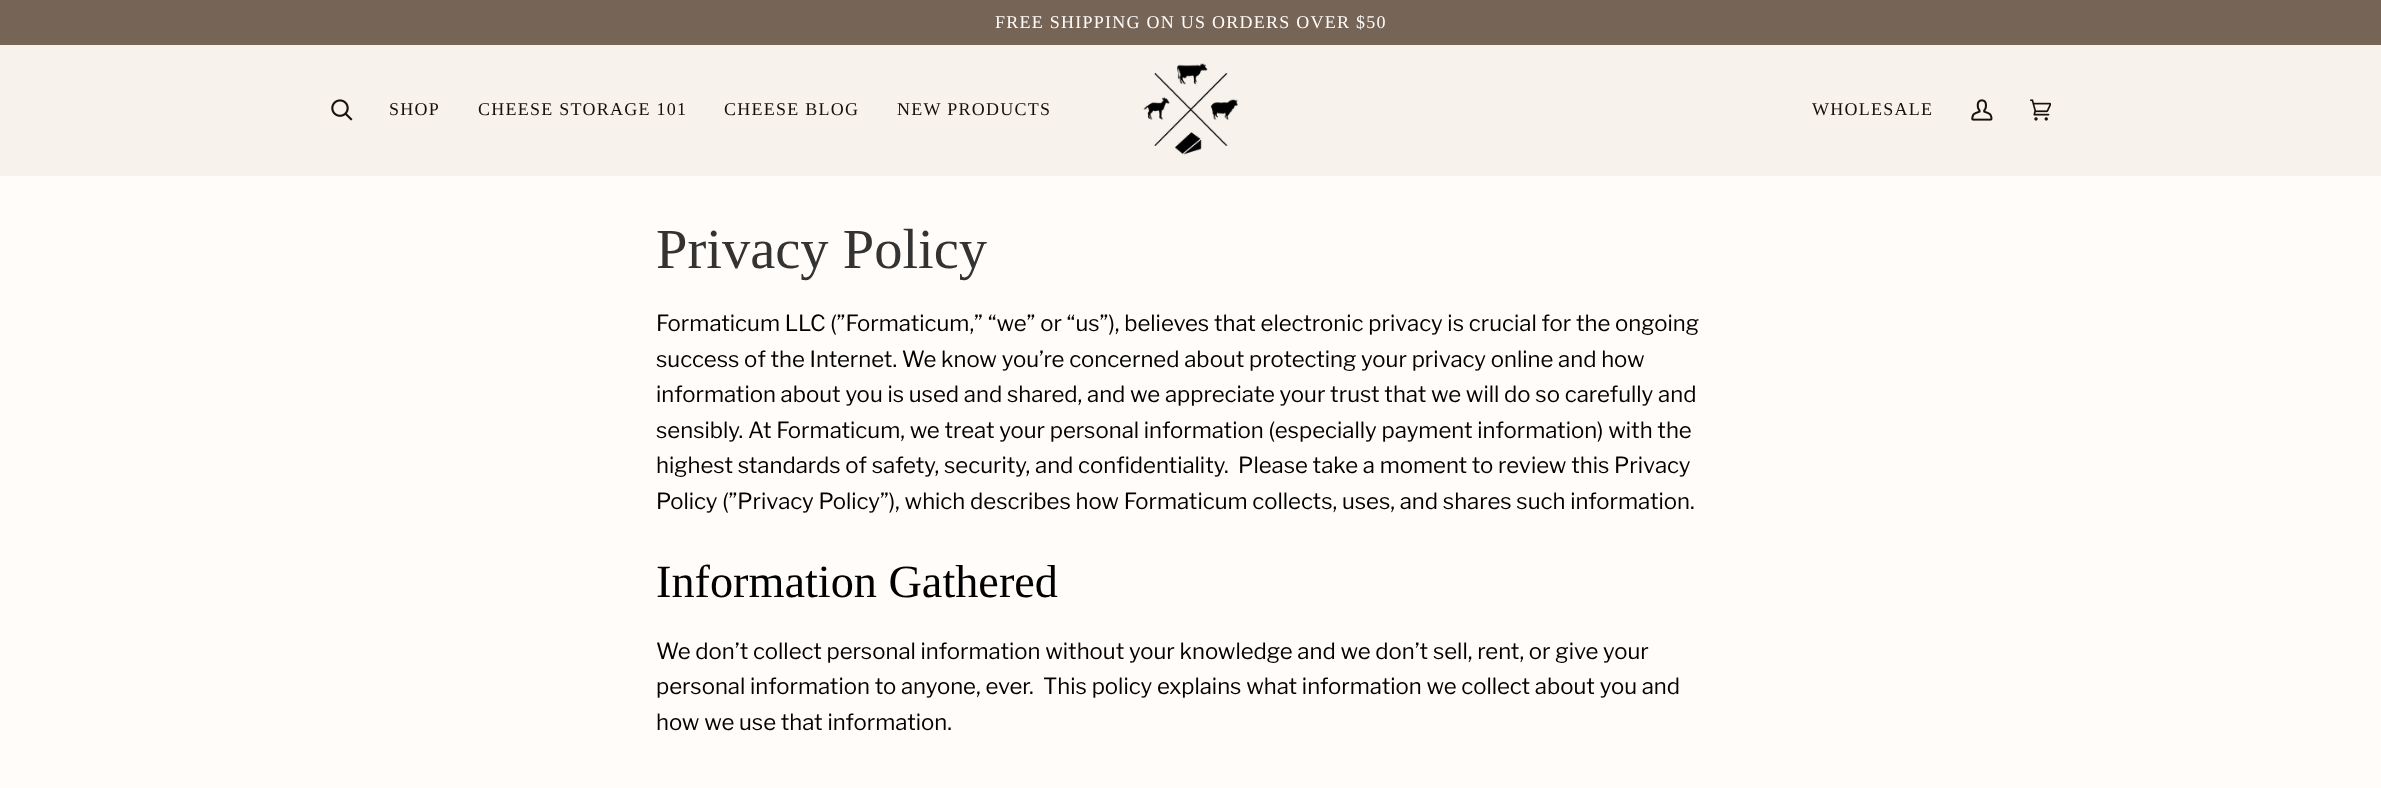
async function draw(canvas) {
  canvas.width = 2381
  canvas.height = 788
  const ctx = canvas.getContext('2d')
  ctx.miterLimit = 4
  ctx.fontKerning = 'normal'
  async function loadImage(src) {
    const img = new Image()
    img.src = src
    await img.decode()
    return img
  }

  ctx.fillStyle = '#fffcf9'
  ctx.fillRect(0, 0, 2381, 788)
  ctx.fillStyle = '#766456'
  ctx.fillRect(0, 0, 2381, 45)
  ctx.letterSpacing = '1.25px'
  ctx.font = '18px Liberation Serif'
  ctx.fillStyle = '#fffcf9'
  ctx.fillText('FREE SHIPPING ON US ORDERS OVER $50', 995, 28)
  ctx.fillStyle = '#f7f2ec'
  ctx.fillRect(0, 45, 2381, 131)
  ctx.drawImage(await loadImage('image0.png'), 331, 99, 22, 22)
  ctx.fillStyle = '#191008'
  ctx.fillText('SHOP', 389, 115)
  ctx.fillText('CHEESE STORAGE 101', 478, 115)
  ctx.fillText('CHEESE BLOG', 724, 115)
  ctx.fillText('NEW PRODUCTS', 897, 115)
  ctx.drawImage(await loadImage('image1.png'), 1143, 63, 95, 92)
  ctx.fillText('WHOLESALE', 1812, 115)
  ctx.drawImage(await loadImage('image2.png'), 1971, 99, 22, 22)
  ctx.drawImage(await loadImage('image3.png'), 2030, 99, 21, 22)
  ctx.letterSpacing = '0px'
  ctx.font = '56.5px Liberation Serif'
  ctx.fillStyle = '#333'
  ctx.fillText('Privacy Policy', 656, 268)
  ctx.font = '22.15px Libre Franklin'
  ctx.fillStyle = '#000'
  ctx.fillText('Formaticum LLC (”Formaticum,” “we” or “us”), believes that electronic privacy is crucial for the ongoing', 656, 331)
  ctx.fillText('success of the Internet. We know you’re concerned about protecting your privacy online and how', 656, 367)
  ctx.fillText('information about you is used and shared, and we appreciate your trust that we will do so carefully and', 656, 402)
  ctx.fillText('sensibly. At Formaticum, we treat your personal information (especially payment information) with the', 656, 438)
  ctx.fillText('highest standards of safety, security, and confidentiality.  Please take a moment to review this Privacy', 656, 473)
  ctx.fillText('Policy (”Privacy Policy”), which describes how Formaticum collects, uses, and shares such information.', 656, 509)
  ctx.font = '46.25px Liberation Serif'
  ctx.fillText('Information Gathered', 656, 597)
  ctx.font = '22.15px Libre Franklin'
  ctx.fillText('We don’t collect personal information without your knowledge and we don’t sell, rent, or give your', 656, 659)
  ctx.fillText('personal information to anyone, ever.  This policy explains what information we collect about you and', 656, 694)
  ctx.fillText('how we use that information.', 656, 730)
}

draw(document.querySelector('canvas'))
